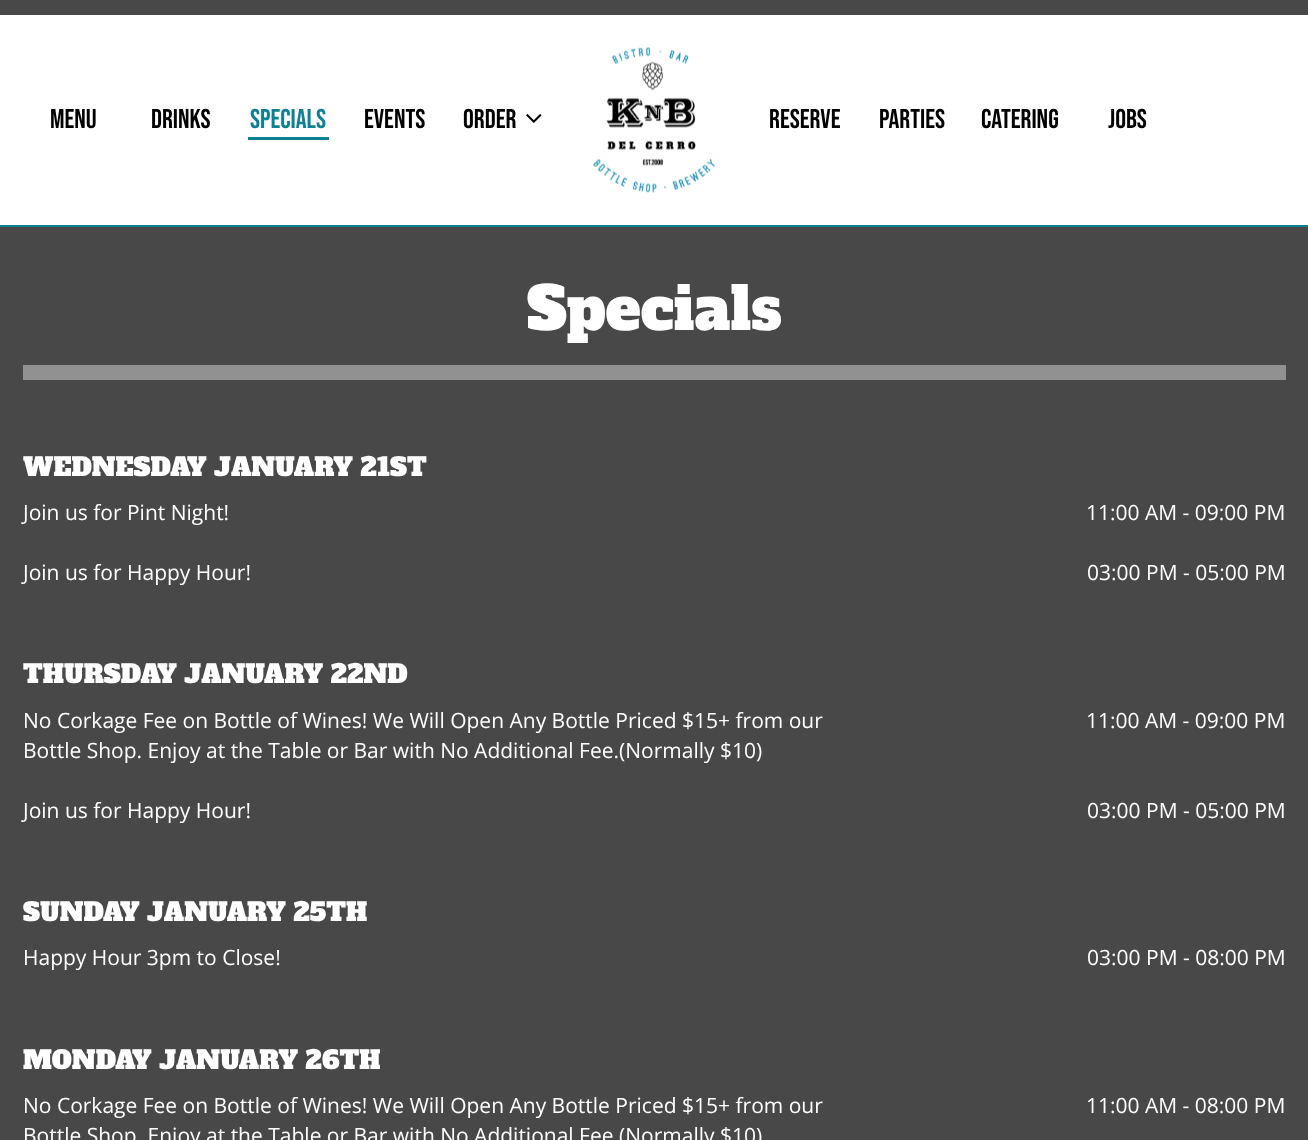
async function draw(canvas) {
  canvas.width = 1308
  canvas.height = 1140
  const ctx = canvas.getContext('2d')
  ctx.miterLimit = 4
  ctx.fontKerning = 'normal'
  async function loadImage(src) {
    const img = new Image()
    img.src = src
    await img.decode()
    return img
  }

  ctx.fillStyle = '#484848'
  ctx.fillRect(0, 0, 1308, 1140)
  ctx.fillStyle = '#fff'
  ctx.fillRect(0, 15, 1308, 210)
  ctx.fillStyle = '#0d8093'
  ctx.fillRect(0, 225, 1308, 2)
  ctx.font = '27px Bebas Neue'
  ctx.fillStyle = '#000'
  ctx.fillText('MENU', 50, 128)
  ctx.fillText('DRINKS', 151, 128)
  ctx.fillStyle = '#0d8093'
  ctx.fillText('SPECIALS', 250, 128)
  ctx.fillRect(248, 137, 81, 3)
  ctx.fillStyle = '#000'
  ctx.fillText('EVENTS', 364, 128)
  ctx.fillText('ORDER', 463, 128)
  ctx.drawImage(await loadImage('image0.png'), 526, 114, 16, 9)
  ctx.drawImage(await loadImage('image1.png'), 593, 47, 122, 146)
  ctx.fillText('RESERVE', 769, 128)
  ctx.fillText('PARTIES', 879, 128)
  ctx.fillText('CATERING', 981, 128)
  ctx.fillText('JOBS', 1108, 128)
  ctx.fillStyle = '#919191'
  ctx.fillRect(23, 365, 1263, 15)
  ctx.font = '59px Alfa Slab One'
  ctx.fillStyle = '#fff'
  ctx.fillText('Specials', 527, 330)
  ctx.font = '25.25px Alfa Slab One'
  ctx.fillText('WEDNESDAY JANUARY 21ST', 23, 476)
  ctx.font = '21px Open Sans'
  ctx.fillText('Join us for Pint Night!', 23, 520)
  ctx.fillText('11:00 AM - 09:00 PM', 1086, 520)
  ctx.fillText('Join us for Happy Hour!', 23, 580)
  ctx.fillText('03:00 PM - 05:00 PM', 1087, 580)
  ctx.font = '25.25px Alfa Slab One'
  ctx.fillText('THURSDAY JANUARY 22ND', 23, 683)
  ctx.font = '21px Open Sans'
  ctx.fillText('No Corkage Fee on Bottle of Wines! We Will Open Any Bottle Priced $15+ from our', 23, 728)
  ctx.fillText('Bottle Shop. Enjoy at the Table or Bar with No Additional Fee.(Normally $10)', 23, 758)
  ctx.fillText('11:00 AM - 09:00 PM', 1086, 728)
  ctx.fillText('Join us for Happy Hour!', 23, 818)
  ctx.fillText('03:00 PM - 05:00 PM', 1087, 818)
  ctx.font = '25.25px Alfa Slab One'
  ctx.fillText('SUNDAY JANUARY 25TH', 23, 921)
  ctx.font = '21px Open Sans'
  ctx.fillText('Happy Hour 3pm to Close!', 23, 965)
  ctx.fillText('03:00 PM - 08:00 PM', 1087, 965)
  ctx.font = '25.25px Alfa Slab One'
  ctx.fillText('MONDAY JANUARY 26TH', 23, 1069)
  ctx.font = '21px Open Sans'
  ctx.fillText('No Corkage Fee on Bottle of Wines! We Will Open Any Bottle Priced $15+ from our', 23, 1113)
  ctx.fillText('Bottle Shop. Enjoy at the Table or Bar with No Additional Fee.(Normally $10)', 23, 1143)
  ctx.fillText('11:00 AM - 08:00 PM', 1086, 1113)
}

draw(document.querySelector('canvas'))
